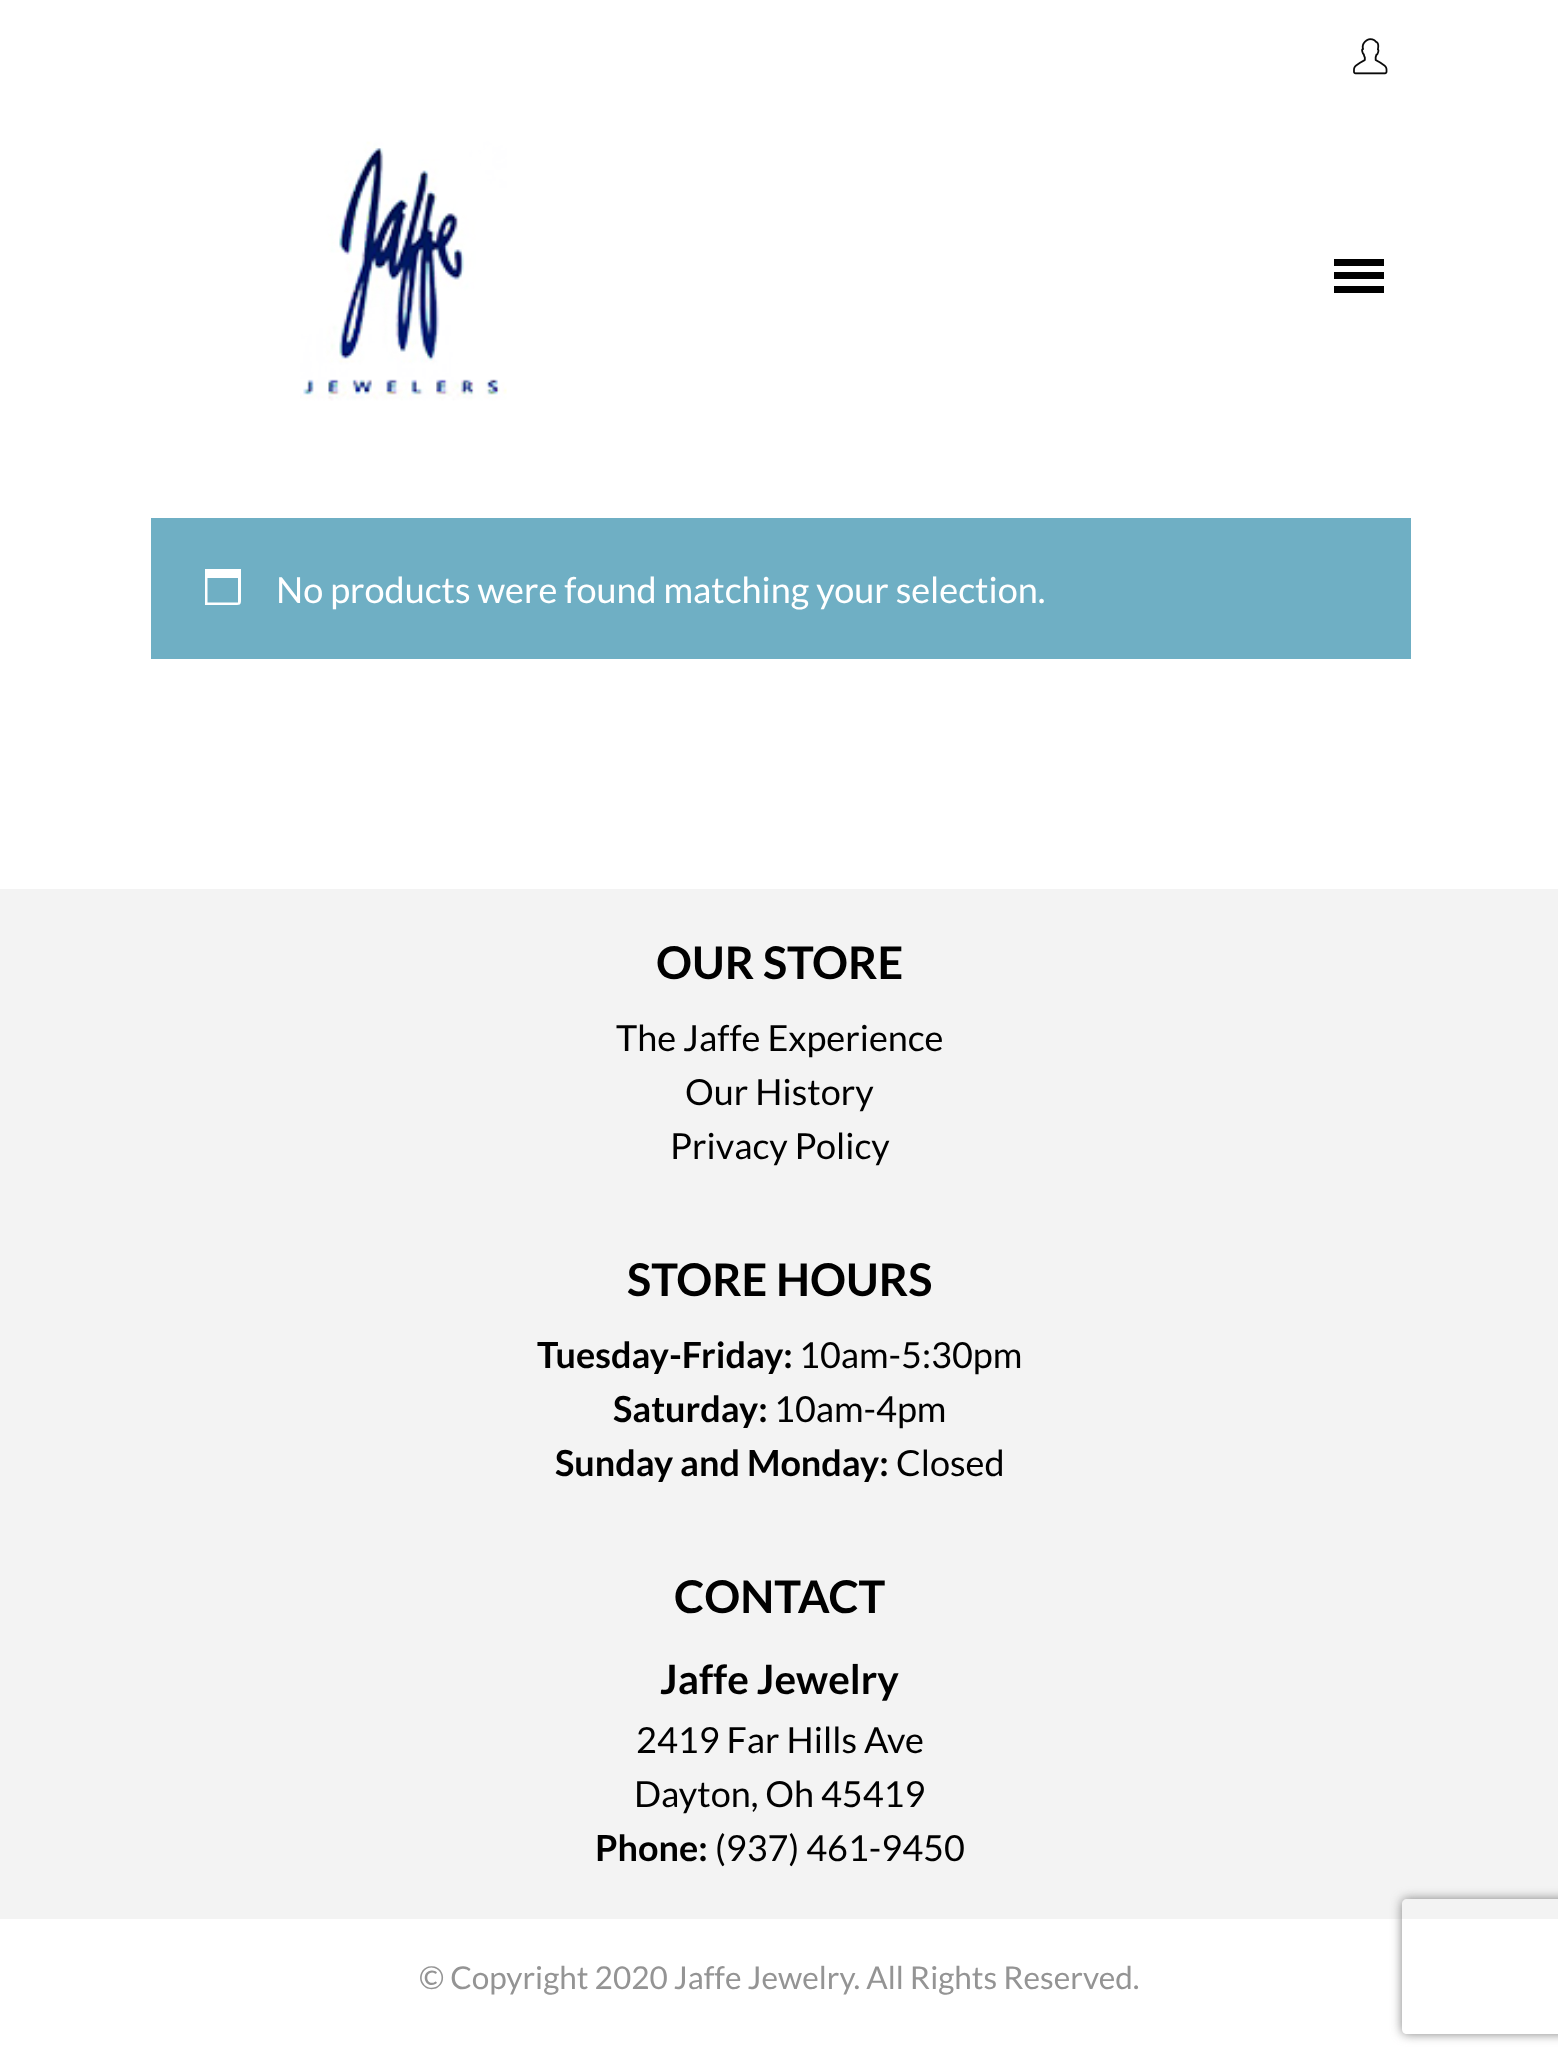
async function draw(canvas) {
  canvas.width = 1558
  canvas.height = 2064
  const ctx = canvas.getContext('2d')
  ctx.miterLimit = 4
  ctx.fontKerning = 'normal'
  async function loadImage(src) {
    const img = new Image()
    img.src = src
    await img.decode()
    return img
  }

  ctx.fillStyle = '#fff'
  ctx.fillRect(0, 0, 1558, 2064)
  ctx.drawImage(await loadImage('image0.png'), 1353, 38, 35, 37)
  ctx.drawImage(await loadImage('image1.png'), 300, 141, 207, 260)
  ctx.fillStyle = '#000'
  ctx.fillRect(1334, 272, 50, 7)
  ctx.fillRect(1334, 259, 50, 7)
  ctx.fillRect(1334, 286, 50, 7)
  ctx.fillStyle = '#6fafc4'
  ctx.fillRect(151, 518, 1260, 141)
  ctx.fillStyle = '#fff'
  ctx.beginPath()
  ctx.moveTo(238, 578)
  ctx.lineTo(207.5, 578)
  ctx.lineTo(207.5, 602.5)
  ctx.lineTo(238, 602.5)
  ctx.closePath()
  ctx.moveTo(241, 569)
  ctx.lineTo(241, 597)
  ctx.bezierCurveTo(241, 605.5, 241.5, 605, 232.5, 605)
  ctx.lineTo(205, 605)
  ctx.lineTo(205, 569)
  ctx.closePath()
  ctx.fill()
  ctx.font = '36px Lato'
  ctx.fillText('No products were found matching your selection.', 276, 603)
  ctx.fillStyle = '#f3f3f3'
  ctx.fillRect(0, 889, 1558, 1030)
  ctx.font = 'bold 45px Lato'
  ctx.fillStyle = '#000'
  ctx.fillText('OUR STORE', 656, 979)
  ctx.font = '36px Lato'
  ctx.fillText('The Jaffe Experience', 616, 1051)
  ctx.fillText('Our History', 685, 1105)
  ctx.fillText('Privacy Policy', 670, 1159)
  ctx.font = 'bold 45px Lato'
  ctx.fillText('STORE HOURS', 627, 1296)
  ctx.font = 'bold 36px Lato'
  ctx.fillText('Tuesday-Friday:', 537, 1368)
  ctx.font = '36px Lato'
  ctx.fillText('10am-5:30pm', 799, 1368)
  ctx.font = 'bold 36px Lato'
  ctx.fillText('Saturday:', 613, 1422)
  ctx.font = '36px Lato'
  ctx.fillText('10am-4pm', 774, 1422)
  ctx.font = 'bold 36px Lato'
  ctx.fillText('Sunday and Monday:', 555, 1476)
  ctx.font = '36px Lato'
  ctx.fillText('Closed', 896, 1476)
  ctx.font = 'bold 45px Lato'
  ctx.fillText('CONTACT', 674, 1613)
  ctx.font = 'bold 40.5px Lato'
  ctx.fillText('Jaffe Jewelry', 660, 1694)
  ctx.font = '36px Lato'
  ctx.fillText('2419 Far Hills Ave', 636, 1753)
  ctx.fillText('Dayton, Oh 45419', 634, 1807)
  ctx.font = 'bold 36px Lato'
  ctx.fillText('Phone:', 595, 1861)
  ctx.font = '36px Lato'
  ctx.fillText('(937) 461-9450', 715, 1861)
  ctx.font = '31.5px Lato'
  ctx.fillStyle = '#949494'
  ctx.fillText('© Copyright 2020 Jaffe Jewelry. All Rights Reserved.', 419, 1989)
  ctx.save()
  ctx.beginPath()
  ctx.moveTo(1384, 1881)
  ctx.lineTo(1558, 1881)
  ctx.lineTo(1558, 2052)
  ctx.lineTo(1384, 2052)
  ctx.closePath()
  ctx.moveTo(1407, 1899)
  ctx.lineTo(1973, 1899)
  ctx.bezierCurveTo(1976, 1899, 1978, 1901, 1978, 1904)
  ctx.lineTo(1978, 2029)
  ctx.bezierCurveTo(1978, 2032, 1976, 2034, 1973, 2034)
  ctx.lineTo(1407, 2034)
  ctx.bezierCurveTo(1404, 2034, 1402, 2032, 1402, 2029)
  ctx.lineTo(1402, 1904)
  ctx.bezierCurveTo(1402, 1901, 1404, 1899, 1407, 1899)
  ctx.closePath()
  ctx.clip('evenodd')
  ctx.fillStyle = '#808080'
  ctx.filter = 'blur(5.5px)'
  ctx.beginPath()
  ctx.roundRect(1402, 1899, 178, 135, 5)
  ctx.fill()
  ctx.filter = 'none'
  ctx.restore()
}

draw(document.querySelector('canvas'))
